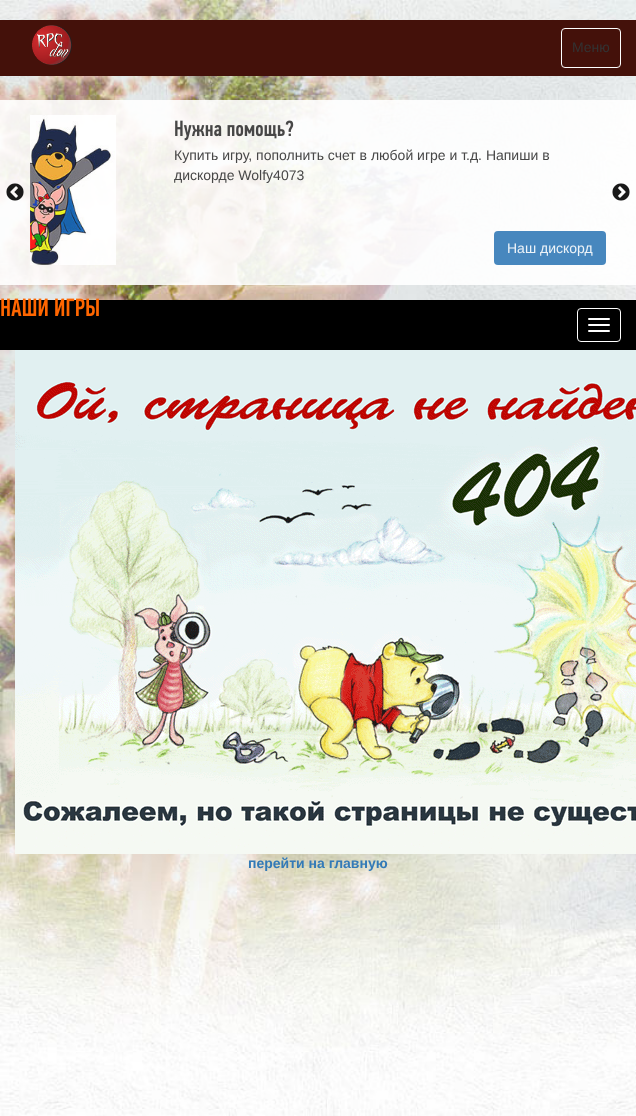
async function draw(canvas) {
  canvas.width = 636
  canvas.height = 1116
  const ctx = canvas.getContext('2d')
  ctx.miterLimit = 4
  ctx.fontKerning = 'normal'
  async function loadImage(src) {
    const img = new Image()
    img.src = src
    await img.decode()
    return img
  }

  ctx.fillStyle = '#fff'
  ctx.fillRect(0, 0, 636, 1116)
  ctx.drawImage(await loadImage('image0.png'), 0, 0, 636, 1116)
  ctx.fillStyle = '#44110a'
  ctx.fillRect(0, 20, 636, 56)
  ctx.drawImage(await loadImage('image1.png'), 32, 25, 40, 40)
  ctx.beginPath()
  ctx.roundRect(561.5, 28.5, 59, 39, 3.5)
  ctx.strokeStyle = '#fff'
  ctx.stroke()
  ctx.font = '14px Liberation Sans'
  ctx.fillStyle = '#333'
  ctx.fillText('Меню', 572, 52)
  ctx.fillStyle = '#ffffffe6'
  ctx.fillRect(0, 100, 636, 185)
  ctx.drawImage(await loadImage('image2.png'), 6, 183, 18, 18)
  ctx.drawImage(await loadImage('image3.png'), 30, 115, 86, 150)
  ctx.drawImage(await loadImage('image4.png'), 175, 120, 119, 21)
  ctx.fillStyle = '#474747'
  ctx.fillText('Купить игру, пополнить счет в любой игре и т.д. Напиши в', 174, 160)
  ctx.fillText('дискорде Wolfy4073', 174, 180)
  ctx.fillStyle = '#337ab7e6'
  ctx.beginPath()
  ctx.roundRect(494, 231, 112, 34, 4)
  ctx.fill()
  ctx.fillStyle = '#edf3f8'
  ctx.fillText('Наш дискорд', 507, 253)
  ctx.drawImage(await loadImage('image5.png'), 612, 183, 18, 18)
  ctx.fillStyle = '#000'
  ctx.fillRect(0, 300, 636, 50)
  ctx.drawImage(await loadImage('image6.png'), 1, 298, 98, 18)
  ctx.beginPath()
  ctx.roundRect(577.5, 308.5, 43, 33, 3.5)
  ctx.stroke()
  ctx.fillStyle = '#fff'
  ctx.beginPath()
  ctx.roundRect(588, 318, 22, 2, 1)
  ctx.fill()
  ctx.beginPath()
  ctx.roundRect(588, 324, 22, 2, 1)
  ctx.fill()
  ctx.beginPath()
  ctx.roundRect(588, 330, 22, 2, 1)
  ctx.fill()
  ctx.drawImage(await loadImage('image7.png'), 15, 350, 621, 504)
  ctx.font = 'bold 14px Liberation Sans'
  ctx.fillStyle = '#337ab7'
  ctx.fillText('перейти на главную', 248, 868)
}

draw(document.querySelector('canvas'))
